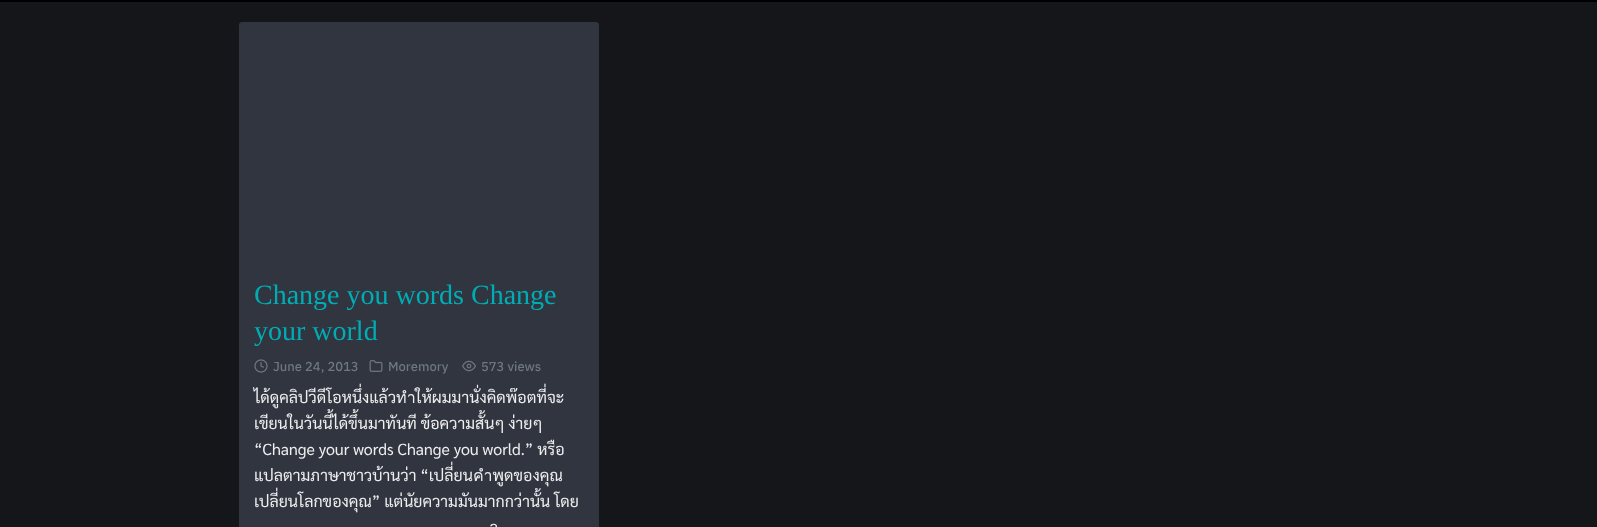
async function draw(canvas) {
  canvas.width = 1597
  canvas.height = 527
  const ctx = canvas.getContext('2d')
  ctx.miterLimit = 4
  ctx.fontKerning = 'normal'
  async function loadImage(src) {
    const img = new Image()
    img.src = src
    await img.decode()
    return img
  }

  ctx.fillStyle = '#14161a'
  ctx.fillRect(0, 0, 1597, 527)
  ctx.fillStyle = '#000'
  ctx.fillRect(0, 0, 1597, 2)
  ctx.fillStyle = '#303540'
  ctx.beginPath()
  ctx.roundRect(239, 22, 360, 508, 3)
  ctx.fill()
  ctx.font = '28px Liberation Serif'
  ctx.fillStyle = '#00adb5'
  ctx.fillText('Change you words Change', 254, 304)
  ctx.fillText('your world', 254, 340)
  ctx.drawImage(await loadImage('image0.png'), 254, 359, 14, 14)
  ctx.font = '500 13px Anuphan'
  ctx.fillStyle = '#6e7882'
  ctx.fillText('June 24, 2013', 273, 371)
  ctx.drawImage(await loadImage('image1.png'), 369, 360, 14, 12)
  ctx.fillText('Moremory', 388, 371)
  ctx.drawImage(await loadImage('image2.png'), 462, 360, 14, 12)
  ctx.fillText('573 views', 481, 371)
  ctx.font = '16px Sarabun'
  ctx.fillStyle = '#eee'
  ctx.fillText('ได้ดูคลิปวีดีโอหนึ่งแล้วทำให้ผมมานั่งคิดพ๊อตที่จะ', 254, 403)
  ctx.fillText('เขียนในวันนี้ได้ขึ้นมาทันที ข้อความสั้นๆ ง่ายๆ', 254, 429)
  ctx.fillText('“Change your words Change you world.” หรือ', 254, 455)
  ctx.fillText('แปลตามภาษาชาวบ้านว่า “เปลี่ยนคำพูดของคุณ', 254, 481)
  ctx.fillText('เปลี่ยนโลกของคุณ” แต่นัยความมันมากกว่านั้น โดย', 254, 507)
  ctx.fillText('ว', 490, 533)
}

draw(document.querySelector('canvas'))
